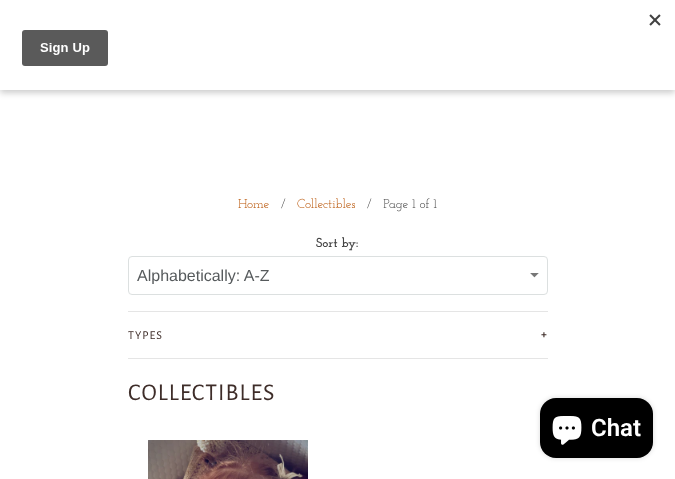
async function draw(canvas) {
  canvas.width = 675
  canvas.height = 479
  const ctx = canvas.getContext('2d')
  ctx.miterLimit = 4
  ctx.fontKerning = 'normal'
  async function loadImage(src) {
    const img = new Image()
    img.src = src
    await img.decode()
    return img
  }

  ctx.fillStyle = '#fff'
  ctx.fillRect(0, 0, 675, 479)
  ctx.fillStyle = '#00000033'
  ctx.filter = 'blur(3px)'
  ctx.beginPath()
  ctx.rect(0, 3, 675, 90)
  ctx.fill()
  ctx.filter = 'none'
  ctx.fillStyle = '#fff'
  ctx.fillRect(0, 0, 675, 90)
  ctx.drawImage(await loadImage('image0.png'), 22, 14, 639, 52)
  ctx.font = '13px Josefin Slab'
  ctx.fillStyle = '#b75100'
  ctx.fillText('Home', 238, 208)
  ctx.fillStyle = '#444'
  ctx.fillText('/', 281, 208)
  ctx.fillStyle = '#b75100'
  ctx.fillText('Collectibles', 297, 208)
  ctx.fillStyle = '#444'
  ctx.fillText('/   Page 1 of 1', 367, 208)
  ctx.font = 'bold 13px Josefin Slab'
  ctx.fillText('Sort by:', 316, 247)
  ctx.drawImage(await loadImage('image1.png'), 530, 273, 9, 5)
  ctx.beginPath()
  ctx.roundRect(128.5, 256.5, 419, 38, 3.5)
  ctx.strokeStyle = '#dce0e0'
  ctx.stroke()
  ctx.save()
  ctx.beginPath()
  ctx.rect(137, 267, 380, 17)
  ctx.clip()
  ctx.font = '16px Liberation Sans'
  ctx.fillStyle = '#565a5c'
  ctx.fillText('Alphabetically: A-Z', 137, 281)
  ctx.restore()
  ctx.fillStyle = '#e5e5e5'
  ctx.fillRect(128, 311, 420, 1)
  ctx.fillRect(128, 358, 420, 1)
  ctx.letterSpacing = '1px'
  ctx.font = '12px Alegreya Sans'
  ctx.fillStyle = '#3e2d29'
  ctx.fillText('TYPES', 128, 339)
  ctx.font = 'bold 10px Liberation Sans'
  ctx.fillText('+', 541, 338)
  ctx.font = '24px Alegreya Sans'
  ctx.fillText('COLLECTIBLES', 128, 400)
  ctx.drawImage(await loadImage('image2.png'), 148, 440, 160, 39)
  ctx.fillStyle = '#00000026'
  ctx.filter = 'blur(2.5px)'
  ctx.beginPath()
  ctx.roundRect(540, 398, 113, 60, 16)
  ctx.fill()
  ctx.filter = 'none'
  ctx.fillStyle = '#000'
  ctx.beginPath()
  ctx.roundRect(540, 398, 113, 60, 16)
  ctx.fill()
  ctx.drawImage(await loadImage('image3.png'), 552, 416, 30, 29)
  ctx.letterSpacing = '0px'
  ctx.font = '600 24px Roboto'
  ctx.fillStyle = '#fff'
  ctx.fillText('Chat', 591, 436)
}

draw(document.querySelector('canvas'))
